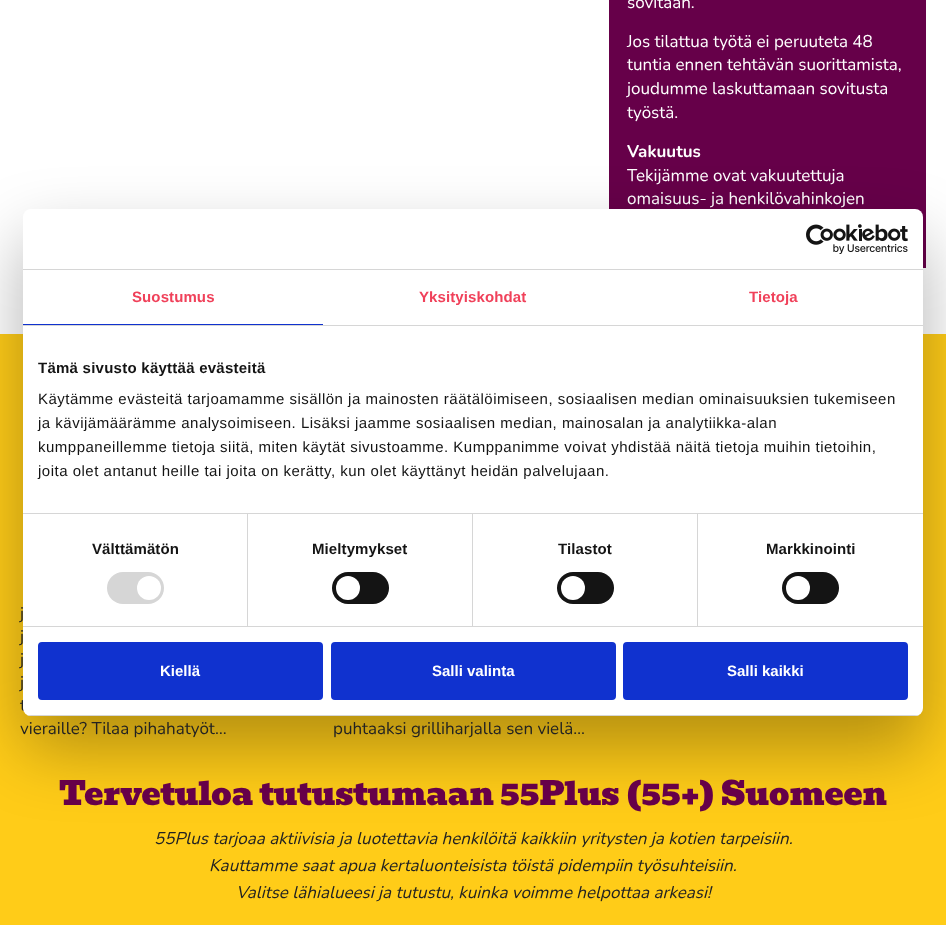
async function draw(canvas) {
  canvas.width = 946
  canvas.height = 925
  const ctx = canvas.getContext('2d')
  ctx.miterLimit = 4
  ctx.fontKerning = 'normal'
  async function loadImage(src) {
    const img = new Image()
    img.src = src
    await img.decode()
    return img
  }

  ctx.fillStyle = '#fff'
  ctx.fillRect(0, 0, 946, 925)
  ctx.fillStyle = '#660049'
  ctx.fillRect(609, 0, 317, 268)
  ctx.font = '17px Nunito'
  ctx.fillStyle = '#fff'
  ctx.fillText('sovitaan.', 627, 8)
  ctx.fillText('Jos tilattua työtä ei peruuteta 48', 627, 47)
  ctx.fillText('tuntia ennen tehtävän suorittamista,', 627, 70)
  ctx.fillText('joudumme laskuttamaan sovitusta', 627, 94)
  ctx.fillText('työstä.', 627, 118)
  ctx.font = 'bold 17px Nunito'
  ctx.fillText('Vakuutus', 627, 157)
  ctx.font = '17px Nunito'
  ctx.fillText('Tekijämme ovat vakuutettuja', 627, 181)
  ctx.fillText('omaisuus- ja henkilövahinkojen', 627, 204)
  ctx.fillStyle = '#ffcc18'
  ctx.fillRect(0, 334, 946, 591)
  ctx.fillStyle = '#0000004d'
  ctx.filter = 'blur(34px)'
  ctx.beginPath()
  ctx.roundRect(23, 241, 900, 507, 8)
  ctx.fill()
  ctx.filter = 'none'
  ctx.fillStyle = '#222'
  ctx.fillText('t', 20, 711)
  ctx.fillStyle = '#fff'
  ctx.beginPath()
  ctx.roundRect(23, 209, 900, 507, 8)
  ctx.fill()
  ctx.fillStyle = '#d6d6d6'
  ctx.fillRect(23, 269, 900, 1)
  ctx.drawImage(await loadImage('image0.png'), 806, 224, 102, 30)
  ctx.fillRect(23, 325, 900, 1)
  ctx.fillStyle = '#1032cf'
  ctx.fillRect(23, 324, 300, 1)
  ctx.letterSpacing = '0.1px'
  ctx.font = 'bold 15px Liberation Sans'
  ctx.fillStyle = '#f0415a'
  ctx.fillText('Suostumus', 132, 302)
  ctx.fillText('Yksityiskohdat', 419, 302)
  ctx.fillText('Tietoja', 749, 302)
  ctx.fillStyle = '#d6d6d6'
  ctx.fillRect(23, 513, 900, 1)
  ctx.letterSpacing = '0.25px'
  ctx.fillStyle = '#141414'
  ctx.fillText('Tämä sivusto käyttää evästeitä', 38, 373)
  ctx.letterSpacing = '0.5px'
  ctx.font = '15px Liberation Sans'
  ctx.fillText('Käytämme evästeitä tarjoamamme sisällön ja mainosten räätälöimiseen, sosiaalisen median ominaisuuksien tukemiseen', 38, 404)
  ctx.fillText('ja kävijämäärämme analysoimiseen. Lisäksi jaamme sosiaalisen median, mainosalan ja analytiikka-alan', 38, 428)
  ctx.fillText('kumppaneillemme tietoja siitä, miten käytät sivustoamme. Kumppanimme voivat yhdistää näitä tietoja muihin tietoihin,', 38, 452)
  ctx.fillText('joita olet antanut heille tai joita on kerätty, kun olet käyttänyt heidän palvelujaan.', 38, 476)
  ctx.fillStyle = '#d6d6d6'
  ctx.fillRect(23, 626, 900, 1)
  ctx.fillRect(247, 514, 1, 112)
  ctx.letterSpacing = '0.1px'
  ctx.font = 'bold 15px Liberation Sans'
  ctx.fillStyle = '#141414'
  ctx.fillText('Välttämätön', 92, 554)
  ctx.fillStyle = '#d6d6d6'
  ctx.beginPath()
  ctx.roundRect(107, 572, 57, 32, 16)
  ctx.fill()
  ctx.fillStyle = '#fff'
  ctx.beginPath()
  ctx.arc(149, 588, 12, 0, 2 * Math.PI)
  ctx.fill()
  ctx.fillStyle = '#d6d6d6'
  ctx.fillRect(472, 514, 1, 112)
  ctx.fillStyle = '#141414'
  ctx.fillText('Mieltymykset', 312, 554)
  ctx.beginPath()
  ctx.roundRect(332, 572, 57, 32, 16)
  ctx.fill()
  ctx.fillStyle = '#fff'
  ctx.beginPath()
  ctx.arc(348, 588, 12, 0, 2 * Math.PI)
  ctx.fill()
  ctx.fillStyle = '#d6d6d6'
  ctx.fillRect(697, 514, 1, 112)
  ctx.fillStyle = '#141414'
  ctx.fillText('Tilastot', 558, 554)
  ctx.beginPath()
  ctx.roundRect(557, 572, 57, 32, 16)
  ctx.fill()
  ctx.fillStyle = '#fff'
  ctx.beginPath()
  ctx.arc(573, 588, 12, 0, 2 * Math.PI)
  ctx.fill()
  ctx.fillStyle = '#141414'
  ctx.fillText('Markkinointi', 766, 554)
  ctx.beginPath()
  ctx.roundRect(782, 572, 57, 32, 16)
  ctx.fill()
  ctx.fillStyle = '#fff'
  ctx.beginPath()
  ctx.arc(798, 588, 12, 0, 2 * Math.PI)
  ctx.fill()
  ctx.save()
  ctx.beginPath()
  ctx.roundRect(23, 209, 900, 507, 8)
  ctx.clip()
  ctx.fillStyle = '#d6d6d6'
  ctx.fillRect(23, 715, 900, 1)
  ctx.restore()
  ctx.fillStyle = '#1032cf'
  ctx.beginPath()
  ctx.roundRect(39, 643, 283, 56, 3)
  ctx.fill()
  ctx.strokeStyle = '#1032cf'
  ctx.lineWidth = 2
  ctx.stroke()
  ctx.letterSpacing = '0px'
  ctx.fillStyle = '#fff'
  ctx.fillText('Kiellä', 160, 676)
  ctx.fillStyle = '#1032cf'
  ctx.beginPath()
  ctx.roundRect(332, 643, 283, 56, 3)
  ctx.fill()
  ctx.stroke()
  ctx.fillStyle = '#fff'
  ctx.fillText('Salli valinta', 432, 676)
  ctx.fillStyle = '#1032cf'
  ctx.beginPath()
  ctx.roundRect(624, 643, 283, 56, 3)
  ctx.fill()
  ctx.stroke()
  ctx.fillStyle = '#fff'
  ctx.fillText('Salli kaikki', 727, 676)
  ctx.font = '17px Nunito'
  ctx.fillStyle = '#222'
  ctx.fillText('j', 20, 619)
  ctx.fillText('j', 20, 642)
  ctx.fillText('j', 20, 665)
  ctx.fillText('j', 20, 688)
  ctx.fillText('vieraille? Tilaa pihahatyöt…', 20, 734)
  ctx.fillText('puhtaaksi grilliharjalla sen vielä…', 333, 734)
  ctx.letterSpacing = '-0.5px'
  ctx.font = '32.3px Bevan'
  ctx.fillStyle = '#660049'
  ctx.fillText('Tervetuloa tutustumaan 55Plus (55+) Suomeen', 59, 805)
  ctx.letterSpacing = '0px'
  ctx.font = 'italic 17px Nunito'
  ctx.fillStyle = '#222'
  ctx.fillText('55Plus tarjoaa aktiivisia ja luotettavia henkilöitä kaikkiin yritysten ja kotien tarpeisiin.', 154, 844)
  ctx.fillText('Kauttamme saat apua kertaluonteisista töistä pidempiin työsuhteisiin.', 209, 871)
  ctx.fillText('Valitse lähialueesi ja tutustu, kuinka voimme helpottaa arkeasi!', 236, 898)
}

draw(document.querySelector('canvas'))
